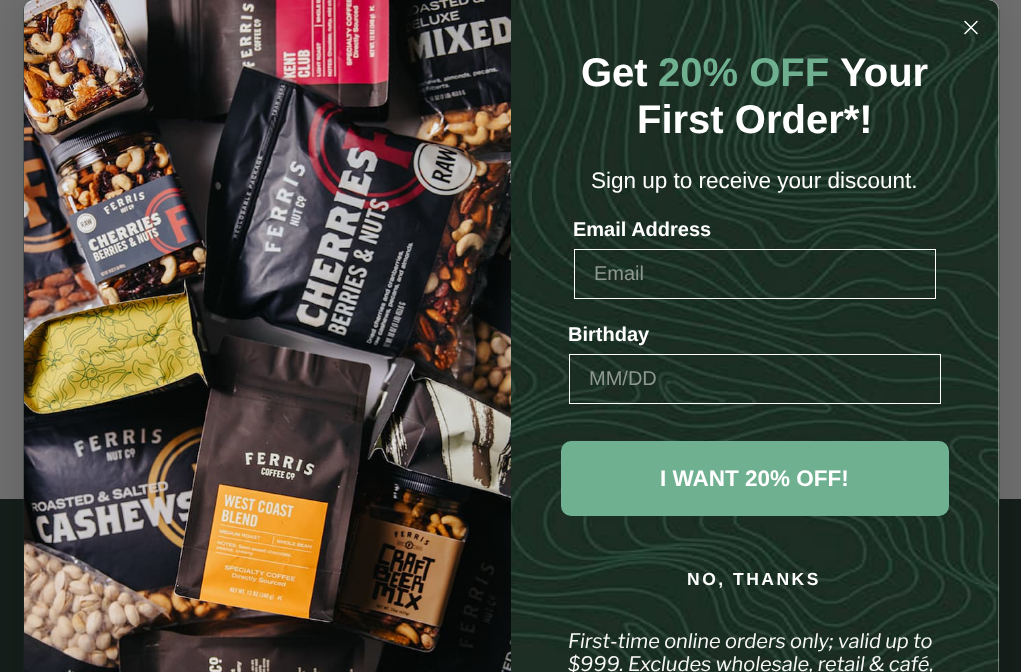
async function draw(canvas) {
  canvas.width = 1021
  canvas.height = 672
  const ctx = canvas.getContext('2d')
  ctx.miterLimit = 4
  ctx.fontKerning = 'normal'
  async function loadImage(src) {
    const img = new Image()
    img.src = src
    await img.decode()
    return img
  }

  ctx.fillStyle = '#6f6f6f'
  ctx.fillRect(0, 0, 1021, 672)
  ctx.fillStyle = '#0c0c0c33'
  ctx.filter = 'blur(0.5px)'
  ctx.beginPath()
  ctx.rect(0, 39, 1021, 154)
  ctx.fill()
  ctx.filter = 'none'
  ctx.fillStyle = '#6f6f6f'
  ctx.fillRect(0, 39, 1021, 154)
  ctx.fillStyle = '#151e1a'
  ctx.fillRect(0, 499, 1021, 173)
  ctx.fillStyle = '#00000026'
  ctx.filter = 'blur(19px)'
  ctx.beginPath()
  ctx.roundRect(24, 0, 975, 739, 10)
  ctx.fill()
  ctx.filter = 'none'
  ctx.fillStyle = '#fff'
  ctx.beginPath()
  ctx.moveTo(34, 0)
  ctx.lineTo(989, 0)
  ctx.bezierCurveTo(994.5, 0, 999, 4.5, 999, 10)
  ctx.lineTo(999, 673)
  ctx.lineTo(24, 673)
  ctx.lineTo(24, 10)
  ctx.bezierCurveTo(24, 4.5, 28.5, 0, 34, 0)
  ctx.closePath()
  ctx.fill()
  ctx.drawImage(await loadImage('image0.png'), 23, 0, 977, 672)
  ctx.beginPath()
  ctx.moveTo(965, 21.5)
  ctx.lineTo(977, 33.5)
  ctx.moveTo(965, 33.5)
  ctx.lineTo(977, 21.5)
  ctx.closePath()
  ctx.strokeStyle = '#fff'
  ctx.lineWidth = 1.5
  ctx.lineCap = 'round'
  ctx.lineJoin = 'round'
  ctx.stroke()
  ctx.drawImage(await loadImage('image1.png'), 24, 0, 487, 672)
  ctx.font = 'bold 40px Liberation Sans'
  ctx.fillText('Get', 581, 86)
  ctx.fillStyle = '#6fb090'
  ctx.fillText('20% OFF', 658, 86)
  ctx.fillStyle = '#fff'
  ctx.fillText('Your', 840, 86)
  ctx.fillText('First Order*!', 637, 133)
  ctx.font = '22.5px Liberation Sans'
  ctx.fillText('Sign up to receive your discount.', 591, 188)
  ctx.font = 'bold 20px Liberation Sans'
  ctx.fillText('Email Address', 573, 236)
  ctx.lineWidth = 1
  ctx.lineJoin = 'miter'
  ctx.strokeRect(574.5, 249.5, 361, 49)
  ctx.font = '20px Liberation Sans'
  ctx.fillStyle = '#8e9892'
  ctx.fillText('Email', 594, 280)
  ctx.font = 'bold 20px Liberation Sans'
  ctx.fillStyle = '#fff'
  ctx.fillText('Birthday', 568, 341)
  ctx.strokeRect(569.5, 354.5, 371, 49)
  ctx.font = '20px Liberation Sans'
  ctx.fillStyle = '#8e9892'
  ctx.fillText('MM/DD', 589, 385)
  ctx.fillStyle = '#6fb090'
  ctx.beginPath()
  ctx.roundRect(561, 441, 388, 75, 10)
  ctx.fill()
  ctx.font = 'bold 22.5px Liberation Sans'
  ctx.fillStyle = '#fff'
  ctx.fillText('I WANT 20% OFF!', 660, 486)
  ctx.letterSpacing = '2.5px'
  ctx.font = 'bold 17.5px Liberation Sans'
  ctx.fillText('NO, THANKS', 687, 585)
  ctx.letterSpacing = '0px'
  ctx.font = 'italic 20px Libre Franklin'
  ctx.fillStyle = '#f8f8f8'
  ctx.fillText('First-time online orders only; valid up to', 568, 648)
  ctx.fillText('$999. Excludes wholesale, retail & café,', 568, 671)
}

draw(document.querySelector('canvas'))
